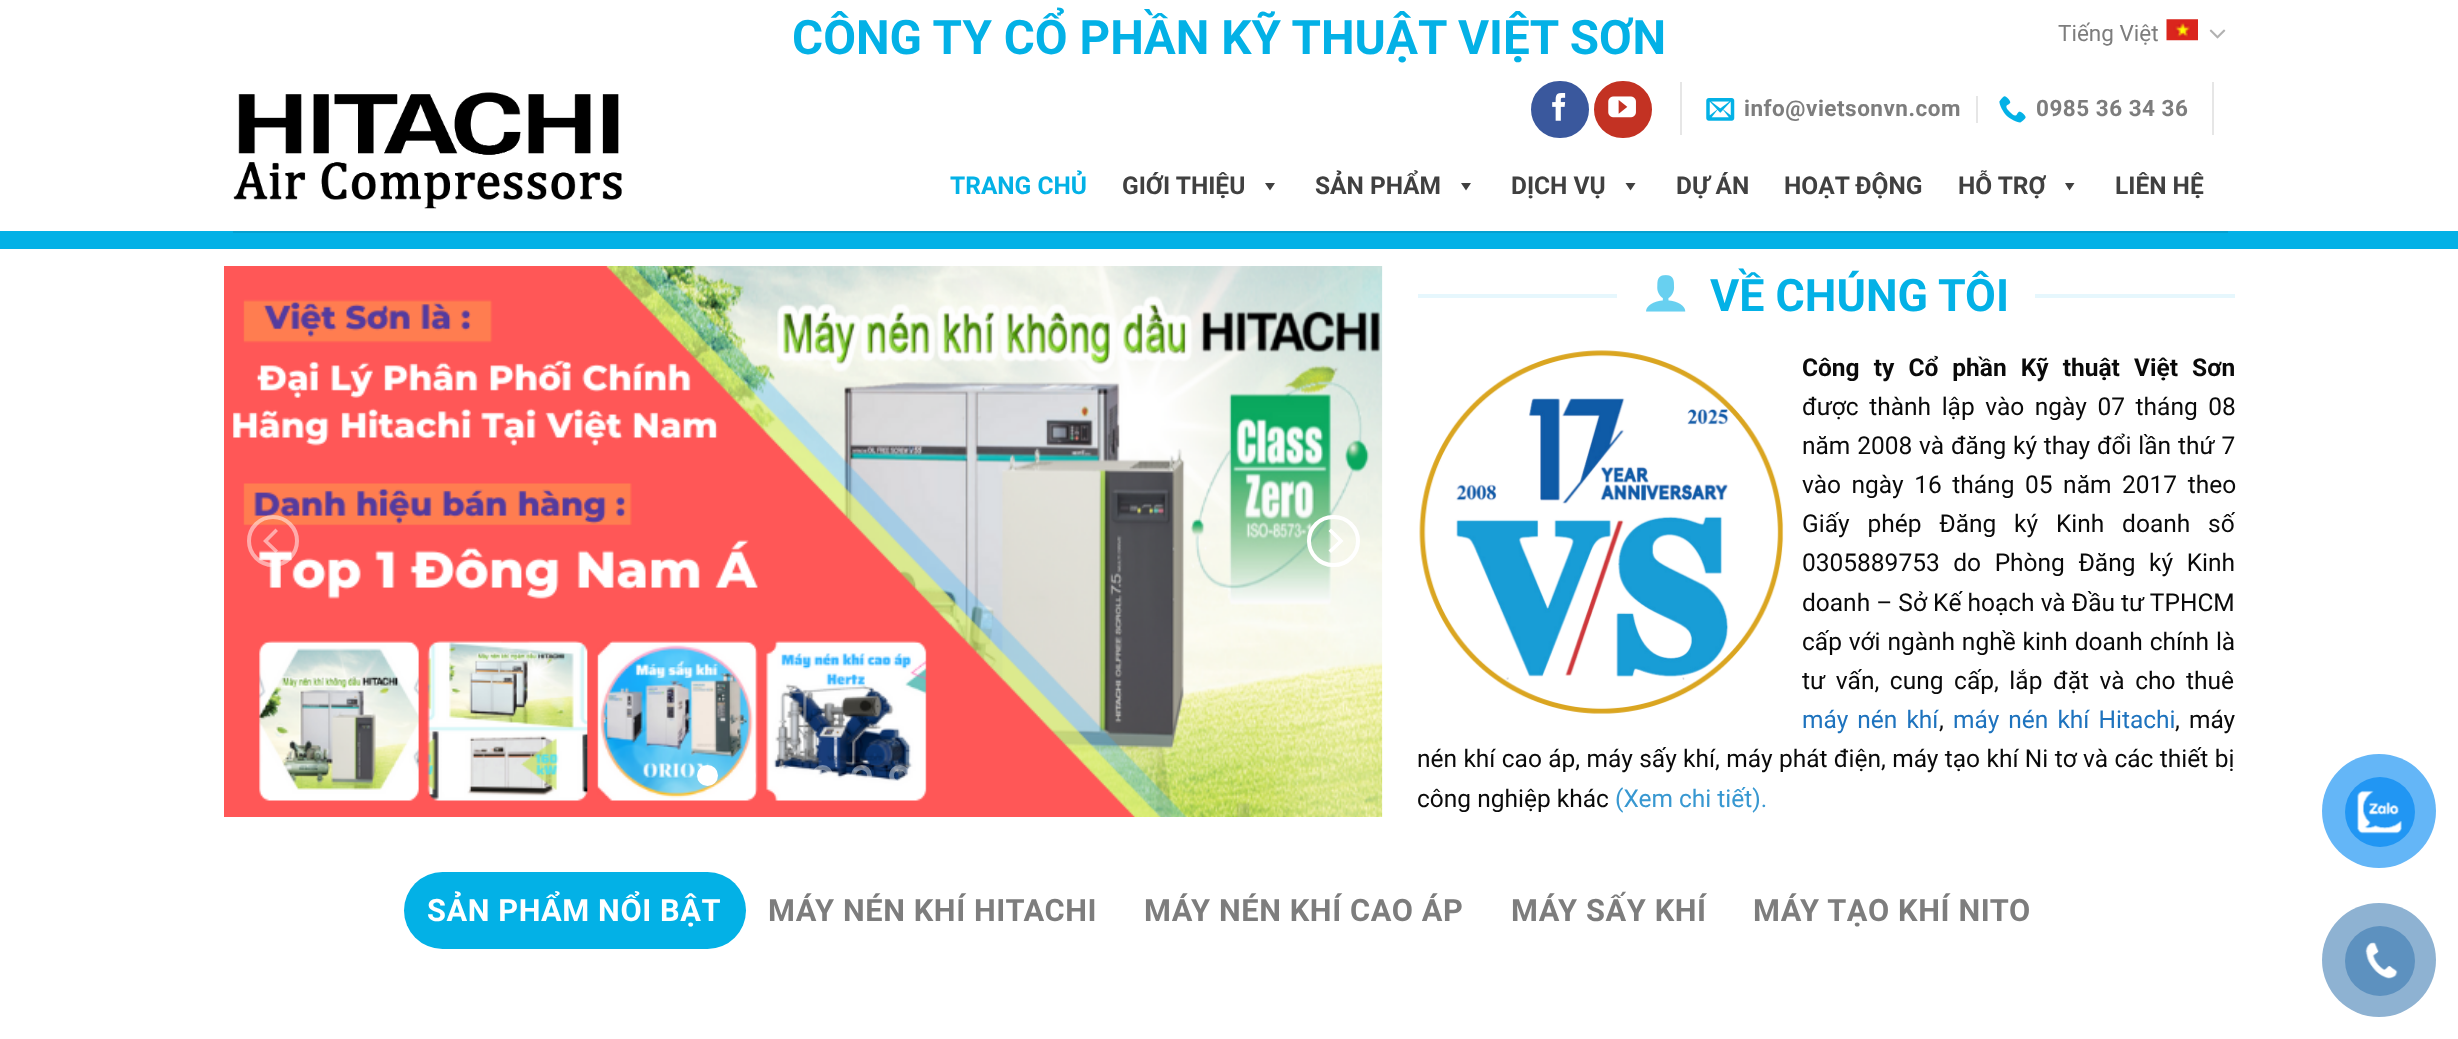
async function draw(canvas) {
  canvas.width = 2458
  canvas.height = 1039
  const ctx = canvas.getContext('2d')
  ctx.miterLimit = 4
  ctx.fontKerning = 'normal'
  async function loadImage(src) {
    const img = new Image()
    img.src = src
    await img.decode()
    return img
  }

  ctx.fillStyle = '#fff'
  ctx.fillRect(0, 0, 2458, 1039)
  ctx.font = 'bold 47.6px Roboto'
  ctx.fillStyle = '#03b1e6'
  ctx.fillText('CÔNG TY CỔ PHẦN KỸ THUẬT VIỆT SƠN', 792, 54)
  ctx.font = '22.5px Roboto'
  ctx.fillStyle = '#7d7d7d'
  ctx.fillText('Tiếng Việt', 2058, 41)
  ctx.drawImage(await loadImage('image0.png'), 2166, 19, 32, 22)
  ctx.drawImage(await loadImage('image1.png'), 2209, 29, 17, 10)
  ctx.fillStyle = '#03b1e6'
  ctx.fillRect(0, 231, 2458, 18)
  ctx.drawImage(await loadImage('image2.png'), 233, 92, 389, 117)
  ctx.fillStyle = '#3a589d'
  ctx.beginPath()
  ctx.roundRect(1532, 82, 56, 55, 27.5)
  ctx.fill()
  ctx.strokeStyle = '#3a589d'
  ctx.lineWidth = 2
  ctx.stroke()
  ctx.drawImage(await loadImage('image3.png'), 1552, 93, 14, 28)
  ctx.fillStyle = '#c33223'
  ctx.beginPath()
  ctx.roundRect(1595, 82, 56, 55, 27.5)
  ctx.fill()
  ctx.strokeStyle = '#c33223'
  ctx.stroke()
  ctx.drawImage(await loadImage('image4.png'), 1608, 96, 28, 22)
  ctx.fillStyle = '#e6e6e6'
  ctx.fillRect(1680, 82, 2, 53)
  ctx.drawImage(await loadImage('image5.png'), 1706, 98, 29, 23)
  ctx.letterSpacing = '0.5px'
  ctx.font = 'bold 22.5px Roboto'
  ctx.fillStyle = '#7d7d7d'
  ctx.fillText('info@vietsonvn.com', 1744, 116)
  ctx.fillStyle = '#e6e6e6'
  ctx.fillRect(1976, 96, 2, 27)
  ctx.drawImage(await loadImage('image6.png'), 1999, 96, 27, 27)
  ctx.fillStyle = '#7d7d7d'
  ctx.fillText('0985 36 34 36', 2036, 116)
  ctx.fillStyle = '#e6e6e6'
  ctx.fillRect(2212, 82, 2, 53)
  ctx.letterSpacing = '0px'
  ctx.font = 'bold 24.5px Roboto'
  ctx.fillStyle = '#03b1e6'
  ctx.fillText('TRANG CHỦ', 950, 194)
  ctx.fillStyle = '#404040'
  ctx.fillText('GIỚI THIỆU', 1122, 194)
  ctx.beginPath()
  ctx.moveTo(1275, 183)
  ctx.lineTo(1270, 190.5)
  ctx.lineTo(1265, 183)
  ctx.closePath()
  ctx.fill()
  ctx.fillText('SẢN PHẨM', 1315, 194)
  ctx.beginPath()
  ctx.moveTo(1471, 183)
  ctx.lineTo(1466, 190.5)
  ctx.lineTo(1461, 183)
  ctx.closePath()
  ctx.fill()
  ctx.fillText('DỊCH VỤ', 1511, 194)
  ctx.beginPath()
  ctx.moveTo(1635.5, 183)
  ctx.lineTo(1630.5, 190.5)
  ctx.lineTo(1625.5, 183)
  ctx.closePath()
  ctx.fill()
  ctx.fillText('DỰ ÁN', 1676, 194)
  ctx.fillText('HOẠT ĐỘNG', 1784, 194)
  ctx.fillText('HỖ TRỢ', 1958, 194)
  ctx.beginPath()
  ctx.moveTo(2074.5, 183)
  ctx.lineTo(2069.5, 190.5)
  ctx.lineTo(2065, 183)
  ctx.closePath()
  ctx.fill()
  ctx.fillText('LIÊN HỆ', 2115, 194)
  ctx.fillStyle = '#04a0d0'
  ctx.fillRect(233, 231, 1995, 2)
  ctx.drawImage(await loadImage('image7.png'), 224, 266, 1159, 551)
  ctx.beginPath()
  ctx.arc(273, 541, 24, 0, 2 * Math.PI)
  ctx.strokeStyle = '#ffffff80'
  ctx.lineWidth = 4
  ctx.stroke()
  ctx.fillStyle = '#ffffff80'
  ctx.beginPath()
  ctx.moveTo(263, 541)
  ctx.lineTo(275.5, 553)
  ctx.lineTo(278, 550.5)
  ctx.lineTo(268, 541)
  ctx.lineTo(278, 531)
  ctx.lineTo(275.5, 528.5)
  ctx.closePath()
  ctx.fill()
  ctx.beginPath()
  ctx.roundRect(1309, 517, 49, 48, 24)
  ctx.strokeStyle = '#fff'
  ctx.stroke()
  ctx.fillStyle = '#fff'
  ctx.beginPath()
  ctx.moveTo(1343.5, 541)
  ctx.lineTo(1331, 528.5)
  ctx.lineTo(1328.5, 531)
  ctx.lineTo(1338.5, 541)
  ctx.lineTo(1328.5, 550.5)
  ctx.lineTo(1331, 553)
  ctx.closePath()
  ctx.fill()
  ctx.beginPath()
  ctx.arc(707.5, 775.5, 8, 0, 2 * Math.PI)
  ctx.fill()
  ctx.lineWidth = 5
  ctx.stroke()
  ctx.beginPath()
  ctx.arc(745.5, 775.5, 8, 0, 2 * Math.PI)
  ctx.strokeStyle = '#ffffff66'
  ctx.stroke()
  ctx.beginPath()
  ctx.arc(784.5, 775.5, 8, 0, 2 * Math.PI)
  ctx.stroke()
  ctx.beginPath()
  ctx.arc(822.5, 775.5, 8, 0, 2 * Math.PI)
  ctx.stroke()
  ctx.beginPath()
  ctx.arc(861.5, 775.5, 8, 0, 2 * Math.PI)
  ctx.stroke()
  ctx.beginPath()
  ctx.arc(899.5, 775.5, 8, 0, 2 * Math.PI)
  ctx.stroke()
  ctx.fillStyle = '#e6f7fd'
  ctx.fillRect(1418, 294, 199, 4)
  ctx.drawImage(await loadImage('image8.png'), 1646, 275, 40, 37)
  ctx.font = 'bold 44.75px Roboto'
  ctx.fillStyle = '#03b1e6'
  ctx.fillText('VỀ CHÚNG TÔI', 1710, 311)
  ctx.fillStyle = '#e6f7fd'
  ctx.fillRect(2035, 294, 200, 4)
  ctx.drawImage(await loadImage('image9.png'), 1419, 350, 365, 364)
  ctx.wordSpacing = '8px'
  ctx.font = 'bold 24.5px Roboto'
  ctx.fillStyle = '#0a0a0a'
  ctx.fillText('Công ty Cổ phần Kỹ thuật Việt Sơn', 1802, 376)
  ctx.wordSpacing = '4.5px'
  ctx.font = '24.5px Roboto'
  ctx.fillText('được thành lập vào ngày 07 tháng 08', 1802, 415)
  ctx.wordSpacing = '0.75px'
  ctx.fillText('năm 2008 và đăng ký thay đổi lần thứ 7', 1802, 454)
  ctx.wordSpacing = '4.5px'
  ctx.fillText('vào ngày 16 tháng 05 năm 2017 theo', 1802, 493)
  ctx.wordSpacing = '11.75px'
  ctx.fillText('Giấy phép Đăng ký Kinh doanh số', 1802, 532)
  ctx.wordSpacing = '7.5px'
  ctx.fillText('0305889753 do Phòng Đăng ký Kinh', 1802, 571)
  ctx.wordSpacing = '0px'
  ctx.fillText('doanh – Sở Kế hoạch và Đầu tư TPHCM', 1802, 611)
  ctx.wordSpacing = '0.75px'
  ctx.fillText('cấp với ngành nghề kinh doanh chính là', 1802, 650)
  ctx.wordSpacing = '4.5px'
  ctx.fillText('tư vấn, cung cấp, lắp đặt và cho thuê', 1802, 689)
  ctx.wordSpacing = '3px'
  ctx.fillStyle = '#1e73be'
  ctx.fillText('máy nén khí', 1802, 728)
  ctx.wordSpacing = '0px'
  ctx.fillStyle = '#0a0a0a'
  ctx.fillText(',', 1939, 728)
  ctx.wordSpacing = '3px'
  ctx.fillStyle = '#1e73be'
  ctx.fillText('máy nén khí Hitachi', 1953, 728)
  ctx.fillStyle = '#0a0a0a'
  ctx.fillText(', máy', 2175, 728)
  ctx.wordSpacing = '0.3px'
  ctx.fillText('nén khí cao áp, máy sấy khí, máy phát điện, máy tạo khí Ni tơ và các thiết bị', 1417, 767)
  ctx.wordSpacing = '0px'
  ctx.fillText('công nghiệp khác', 1417, 807)
  ctx.fillStyle = '#3898d1'
  ctx.fillText('(Xem chi tiết).', 1615, 807)
  ctx.fillStyle = '#03b1e6'
  ctx.beginPath()
  ctx.roundRect(404, 872, 342, 77, 38.5)
  ctx.fill()
  ctx.letterSpacing = '0.6px'
  ctx.font = 'bold 30.75px Roboto'
  ctx.fillStyle = '#fff'
  ctx.fillText('SẢN PHẨM NỔI BẬT', 427, 921)
  ctx.fillStyle = '#7d7d7d'
  ctx.fillText('MÁY NÉN KHÍ HITACHI', 768, 921)
  ctx.fillText('MÁY NÉN KHÍ CAO ÁP', 1144, 921)
  ctx.fillText('MÁY SẤY KHÍ', 1511, 921)
  ctx.fillText('MÁY TẠO KHÍ NITO', 1753, 921)
  ctx.fillStyle = '#64b6f7'
  ctx.beginPath()
  ctx.arc(2379, 811, 57, 0, 2 * Math.PI)
  ctx.fill()
  ctx.fillStyle = '#2196f3'
  ctx.beginPath()
  ctx.arc(2380, 812, 35, 0, 2 * Math.PI)
  ctx.fill()
  ctx.drawImage(await loadImage('image10.png'), 2357, 790, 45, 44)
  ctx.fillStyle = '#8eb2d2'
  ctx.beginPath()
  ctx.arc(2379, 960, 57, 0, 2 * Math.PI)
  ctx.fill()
  ctx.fillStyle = '#5d91bf'
  ctx.beginPath()
  ctx.arc(2380, 961, 35, 0, 2 * Math.PI)
  ctx.fill()
  ctx.drawImage(await loadImage('image11.png'), 2365, 942, 33, 37)
}

draw(document.querySelector('canvas'))
